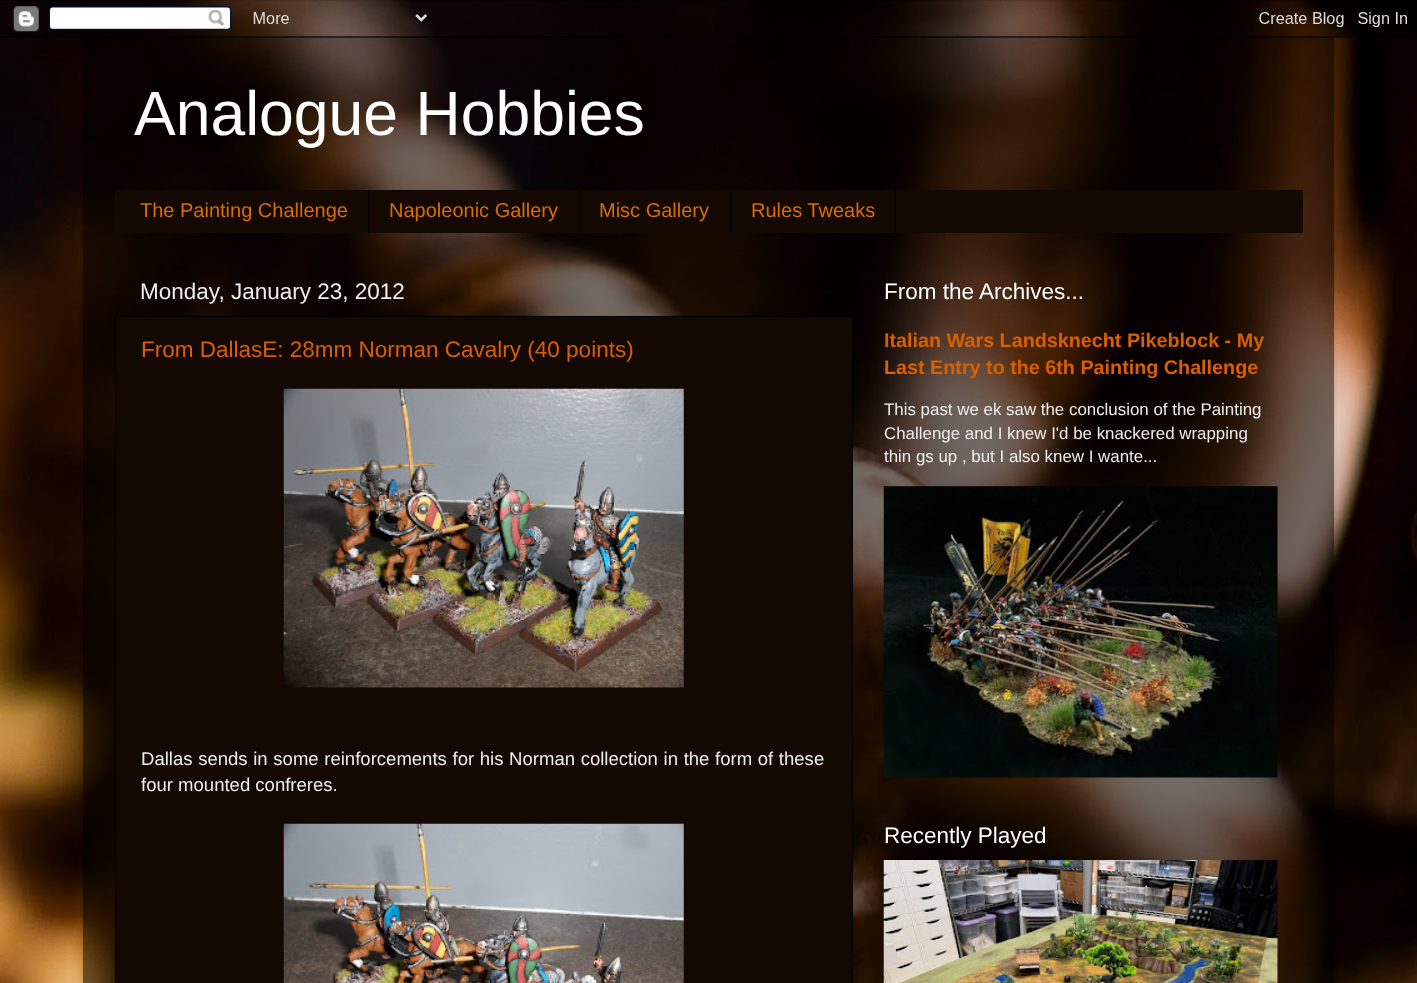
async function draw(canvas) {
  canvas.width = 1417
  canvas.height = 983
  const ctx = canvas.getContext('2d')
  ctx.miterLimit = 4
  ctx.fontKerning = 'normal'
  async function loadImage(src) {
    const img = new Image()
    img.src = src
    await img.decode()
    return img
  }

  ctx.fillStyle = '#fff'
  ctx.fillRect(0, 0, 1417, 983)
  ctx.drawImage(await loadImage('image0.png'), 0, 0, 1417, 983)
  ctx.save()
  ctx.beginPath()
  ctx.moveTo(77, 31)
  ctx.lineTo(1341, 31)
  ctx.lineTo(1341, 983)
  ctx.lineTo(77, 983)
  ctx.closePath()
  ctx.moveTo(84, 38)
  ctx.lineTo(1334, 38)
  ctx.lineTo(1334, 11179)
  ctx.lineTo(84, 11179)
  ctx.closePath()
  ctx.clip('evenodd')
  ctx.fillStyle = '#00000026'
  ctx.filter = 'blur(2px)'
  ctx.beginPath()
  ctx.rect(84, 38, 1250, 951)
  ctx.fill()
  ctx.filter = 'none'
  ctx.restore()
  ctx.fillStyle = '#00000080'
  ctx.fillRect(83, 37, 1251, 946)
  ctx.drawImage(await loadImage('image1.png'), 0, 0, 1416, 38)
  ctx.font = '62.5px Liberation Sans'
  ctx.fillStyle = '#fff'
  ctx.fillText('Analogue Hobbies', 134, 135)
  ctx.fillStyle = '#130802'
  ctx.fillRect(115, 190, 1188, 43)
  ctx.fillStyle = '#000'
  ctx.fillRect(368, 190, 1, 43)
  ctx.font = '20px Liberation Sans'
  ctx.fillStyle = '#da6e00'
  ctx.fillText('The Painting Challenge', 140, 217)
  ctx.fillStyle = '#000'
  ctx.fillRect(579, 190, 1, 43)
  ctx.fillStyle = '#da6e00'
  ctx.fillText('Napoleonic Gallery', 389, 217)
  ctx.fillStyle = '#000'
  ctx.fillRect(730, 190, 1, 43)
  ctx.fillStyle = '#da6e00'
  ctx.fillText('Misc Gallery', 599, 217)
  ctx.fillStyle = '#000'
  ctx.fillRect(895, 190, 1, 43)
  ctx.fillStyle = '#da6e00'
  ctx.fillText('Rules Tweaks', 751, 217)
  ctx.font = '22.5px Liberation Sans'
  ctx.fillStyle = '#eee'
  ctx.fillText('Monday, January 23, 2012', 140, 299)
  ctx.fillStyle = '#130802'
  ctx.beginPath()
  ctx.rect(115.5, 316.5, 737, 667)
  ctx.fill()
  ctx.strokeStyle = '#000'
  ctx.stroke()
  ctx.fillStyle = '#da5f00'
  ctx.fillText('From DallasE: 28mm Norman Cavalry (40 points)', 141, 357)
  ctx.drawImage(await loadImage('image2.png'), 283, 388, 401, 300)
  ctx.wordSpacing = '0.5px'
  ctx.font = '18.55px Liberation Sans'
  ctx.fillStyle = '#eee'
  ctx.fillText('Dallas sends in some reinforcements for his Norman collection in the form of these', 141, 765)
  ctx.wordSpacing = '0px'
  ctx.fillText('four mounted confreres.', 141, 791)
  ctx.drawImage(await loadImage('image3.png'), 283, 823, 401, 160)
  ctx.font = '22.5px Liberation Sans'
  ctx.fillStyle = '#fff'
  ctx.fillText('From the Archives...', 884, 299)
  ctx.font = 'bold 19.75px Liberation Sans'
  ctx.fillStyle = '#da5f00'
  ctx.fillText('Italian Wars Landsknecht Pikeblock - My', 884, 347)
  ctx.fillText('Last Entry to the 6th Painting Challenge', 884, 374)
  ctx.font = '16.9px Liberation Sans'
  ctx.fillStyle = '#eee'
  ctx.fillText('This past we ek saw the conclusion of the Painting', 884, 415)
  ctx.fillText('Challenge and I knew I\'d be knackered wrapping', 884, 439)
  ctx.fillText('thin gs up , but I also knew I wante...', 884, 462)
  ctx.drawImage(await loadImage('image4.png'), 883, 486, 395, 292)
  ctx.font = '22.5px Liberation Sans'
  ctx.fillStyle = '#fff'
  ctx.fillText('Recently Played', 884, 843)
  ctx.drawImage(await loadImage('image5.png'), 883, 860, 395, 123)
}

draw(document.querySelector('canvas'))
